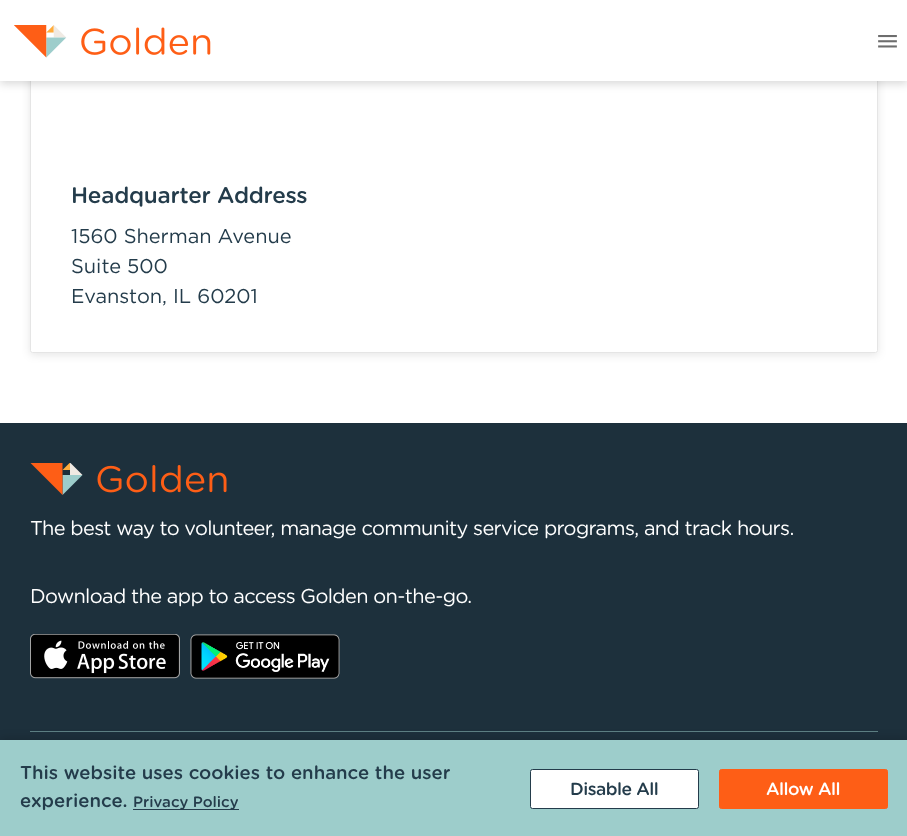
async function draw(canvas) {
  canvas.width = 907
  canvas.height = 836
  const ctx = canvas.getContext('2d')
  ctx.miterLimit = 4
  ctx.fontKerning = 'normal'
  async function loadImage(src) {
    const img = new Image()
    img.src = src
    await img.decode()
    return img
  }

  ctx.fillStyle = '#fff'
  ctx.fillRect(0, 0, 907, 836)
  ctx.save()
  ctx.beginPath()
  ctx.moveTo(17, 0)
  ctx.lineTo(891, 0)
  ctx.lineTo(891, 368)
  ctx.lineTo(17, 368)
  ctx.closePath()
  ctx.moveTo(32.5, -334)
  ctx.lineTo(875.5, -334)
  ctx.bezierCurveTo(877, -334, 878, -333, 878, -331.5)
  ctx.lineTo(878, 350.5)
  ctx.bezierCurveTo(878, 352, 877, 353, 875.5, 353)
  ctx.lineTo(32.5, 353)
  ctx.bezierCurveTo(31, 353, 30, 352, 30, 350.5)
  ctx.lineTo(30, -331.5)
  ctx.bezierCurveTo(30, -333, 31, -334, 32.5, -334)
  ctx.closePath()
  ctx.clip('evenodd')
  ctx.fillStyle = '#0000001a'
  ctx.filter = 'blur(4px)'
  ctx.beginPath()
  ctx.roundRect(30, -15, 848, 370, 2.5)
  ctx.fill()
  ctx.filter = 'none'
  ctx.restore()
  ctx.beginPath()
  ctx.roundRect(30.5, -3.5, 847, 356, 2)
  ctx.strokeStyle = '#e5e5e5'
  ctx.stroke()
  ctx.fillStyle = '#00000026'
  ctx.filter = 'blur(4px)'
  ctx.beginPath()
  ctx.rect(0, 3, 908, 81)
  ctx.fill()
  ctx.filter = 'none'
  ctx.fillStyle = '#fff'
  ctx.fillRect(0, 0, 907, 81)
  ctx.drawImage(await loadImage('image0.png'), 14, 25, 197, 33)
  ctx.drawImage(await loadImage('image1.png'), 878, 35, 19, 13)
  ctx.letterSpacing = '-0.25px'
  ctx.font = '500 22.5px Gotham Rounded'
  ctx.fillStyle = '#243c4b'
  ctx.fillText('Headquarter Address', 71, 203)
  ctx.letterSpacing = '0px'
  ctx.font = '20px Gotham'
  ctx.fillText('1560 Sherman Avenue', 71, 243)
  ctx.fillText('Suite 500', 71, 273)
  ctx.fillText('Evanston, IL 60201', 71, 303)
  ctx.fillStyle = '#1d303c'
  ctx.fillRect(0, 423, 907, 317)
  ctx.drawImage(await loadImage('image2.png'), 30, 463, 197, 32)
  ctx.letterSpacing = '-0.62px'
  ctx.font = '20px Gotham Rounded'
  ctx.fillStyle = '#fff'
  ctx.fillText('The best way to volunteer, manage community service programs, and track hours.', 30, 535)
  ctx.fillText('Download the app to access Golden on-the-go.', 30, 603)
  ctx.drawImage(await loadImage('image3.png'), 30, 634, 150, 45)
  ctx.drawImage(await loadImage('image4.png'), 190, 634, 150, 45)
  ctx.fillStyle = '#5d7f84'
  ctx.fillRect(30, 731, 848, 1)
  ctx.fillStyle = '#00000026'
  ctx.filter = 'blur(4px)'
  ctx.beginPath()
  ctx.rect(0, 738, 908, 96)
  ctx.fill()
  ctx.filter = 'none'
  ctx.fillStyle = '#9dcdcb'
  ctx.fillRect(0, 740, 907, 96)
  ctx.letterSpacing = '0px'
  ctx.font = '500 18.6px Gotham Rounded'
  ctx.fillStyle = '#243c4b'
  ctx.fillText('This website uses cookies to enhance the user', 20, 779)
  ctx.fillText('experience.', 20, 807)
  ctx.fillRect(133, 809, 106, 1)
  ctx.font = '500 15px Gotham Rounded'
  ctx.fillText('Privacy Policy', 133, 807)
  ctx.fillStyle = '#fff'
  ctx.beginPath()
  ctx.roundRect(530.5, 769.5, 168, 39, 2)
  ctx.fill()
  ctx.strokeStyle = '#243c4b'
  ctx.stroke()
  ctx.letterSpacing = '-0.5px'
  ctx.font = '500 17.5px Gotham Rounded'
  ctx.fillStyle = '#243c4b'
  ctx.fillText('Disable All', 570, 795)
  ctx.fillStyle = '#fe5e16'
  ctx.beginPath()
  ctx.roundRect(719.5, 769.5, 168, 39, 2)
  ctx.fill()
  ctx.strokeStyle = '#fe5e16'
  ctx.stroke()
  ctx.fillStyle = '#fff'
  ctx.fillText('Allow All', 766, 795)
}

draw(document.querySelector('canvas'))
